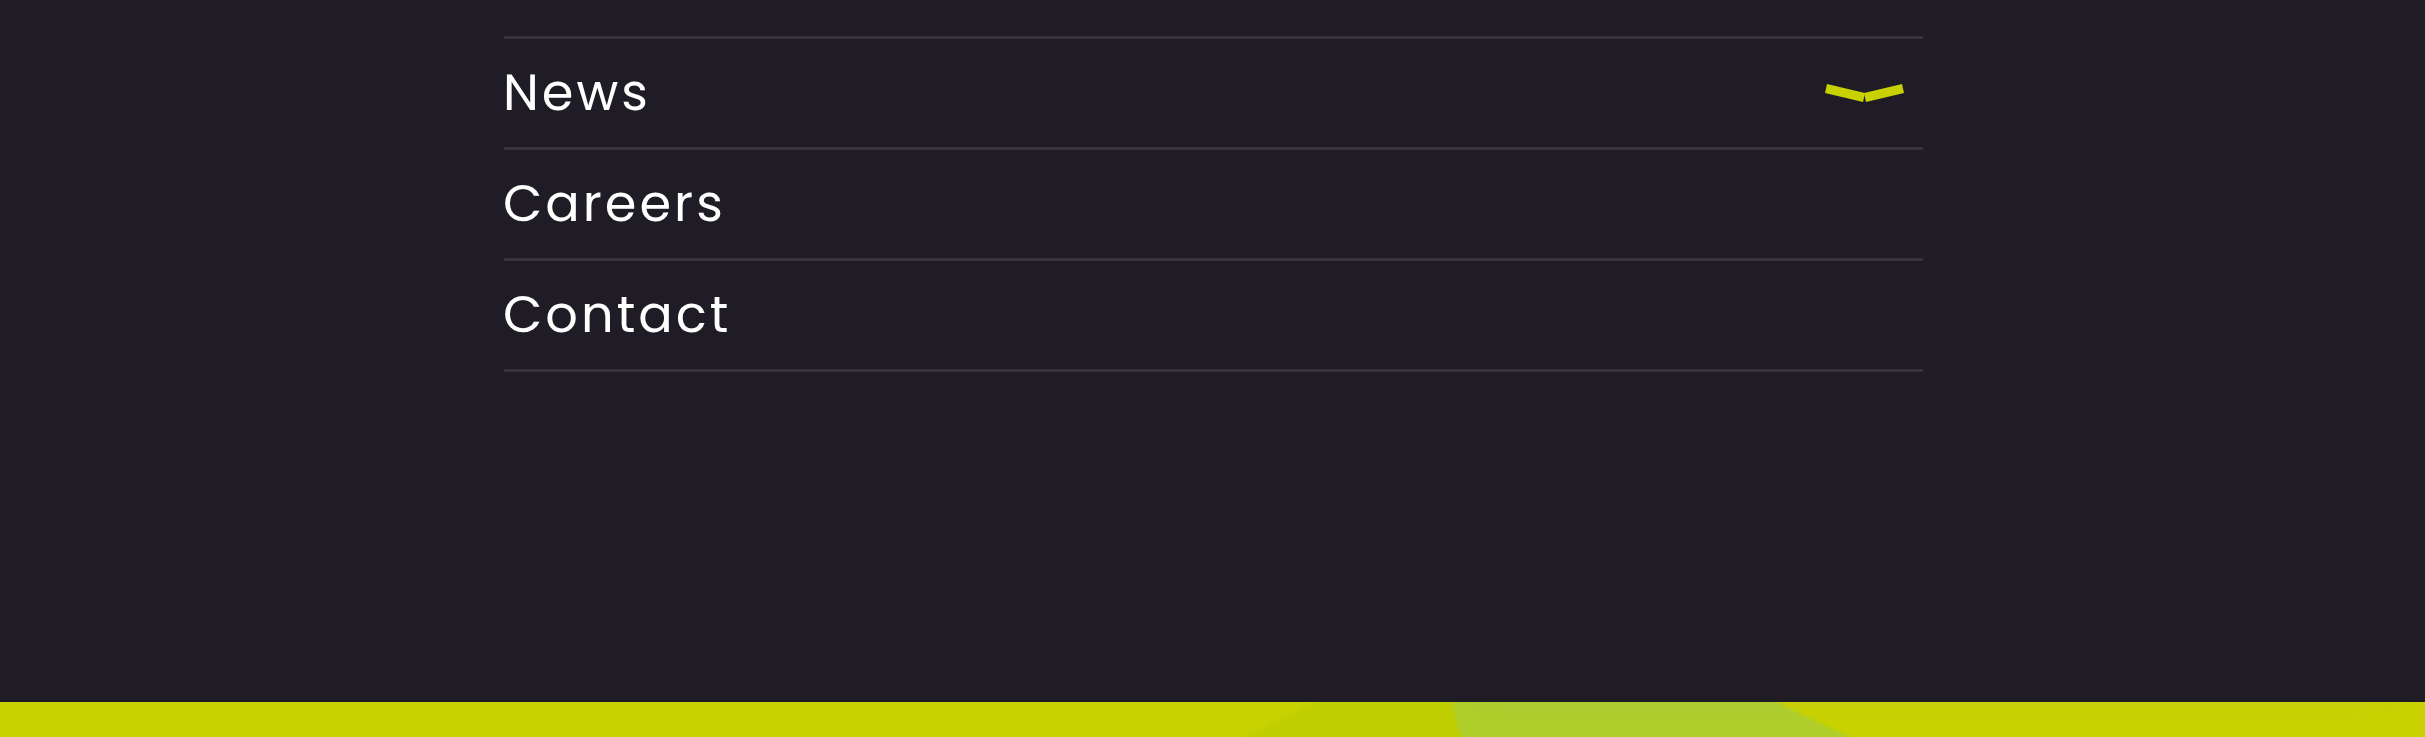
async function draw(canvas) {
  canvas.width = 2425
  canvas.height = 737
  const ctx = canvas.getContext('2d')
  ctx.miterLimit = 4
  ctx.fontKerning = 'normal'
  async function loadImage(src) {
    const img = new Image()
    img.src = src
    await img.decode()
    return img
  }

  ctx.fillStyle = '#c8d200'
  ctx.fillRect(0, 0, 2425, 737)
  ctx.drawImage(await loadImage('image0.png'), 1245, 702, 605, 35)
  ctx.fillStyle = '#acabab4d'
  ctx.filter = 'blur(15px)'
  ctx.beginPath()
  ctx.rect(1482, 72, 900, 618)
  ctx.fill()
  ctx.filter = 'none'
  ctx.fillStyle = '#201c25'
  ctx.fillRect(0, 0, 2425, 702)
  ctx.fillStyle = '#36333b'
  ctx.fillRect(504, 36, 1419, 3)
  ctx.fillRect(504, 147, 1419, 3)
  ctx.letterSpacing = '3px'
  ctx.font = '51px Poppins'
  ctx.fillStyle = '#fff'
  ctx.fillText('News', 503, 110)
  ctx.fillStyle = '#c8d200'
  ctx.beginPath()
  ctx.moveTo(1864, 93)
  ctx.lineTo(1902, 84)
  ctx.lineTo(1904, 93)
  ctx.lineTo(1866, 102)
  ctx.closePath()
  ctx.fill()
  ctx.beginPath()
  ctx.moveTo(1827, 84)
  ctx.lineTo(1865, 93)
  ctx.lineTo(1863, 102)
  ctx.lineTo(1825, 93)
  ctx.closePath()
  ctx.fill()
  ctx.fillStyle = '#36333b'
  ctx.fillRect(504, 258, 1419, 3)
  ctx.fillStyle = '#fff'
  ctx.fillText('Careers', 503, 221)
  ctx.fillStyle = '#36333b'
  ctx.fillRect(504, 369, 1419, 3)
  ctx.fillStyle = '#fff'
  ctx.fillText('Contact', 503, 332)
}

draw(document.querySelector('canvas'))
